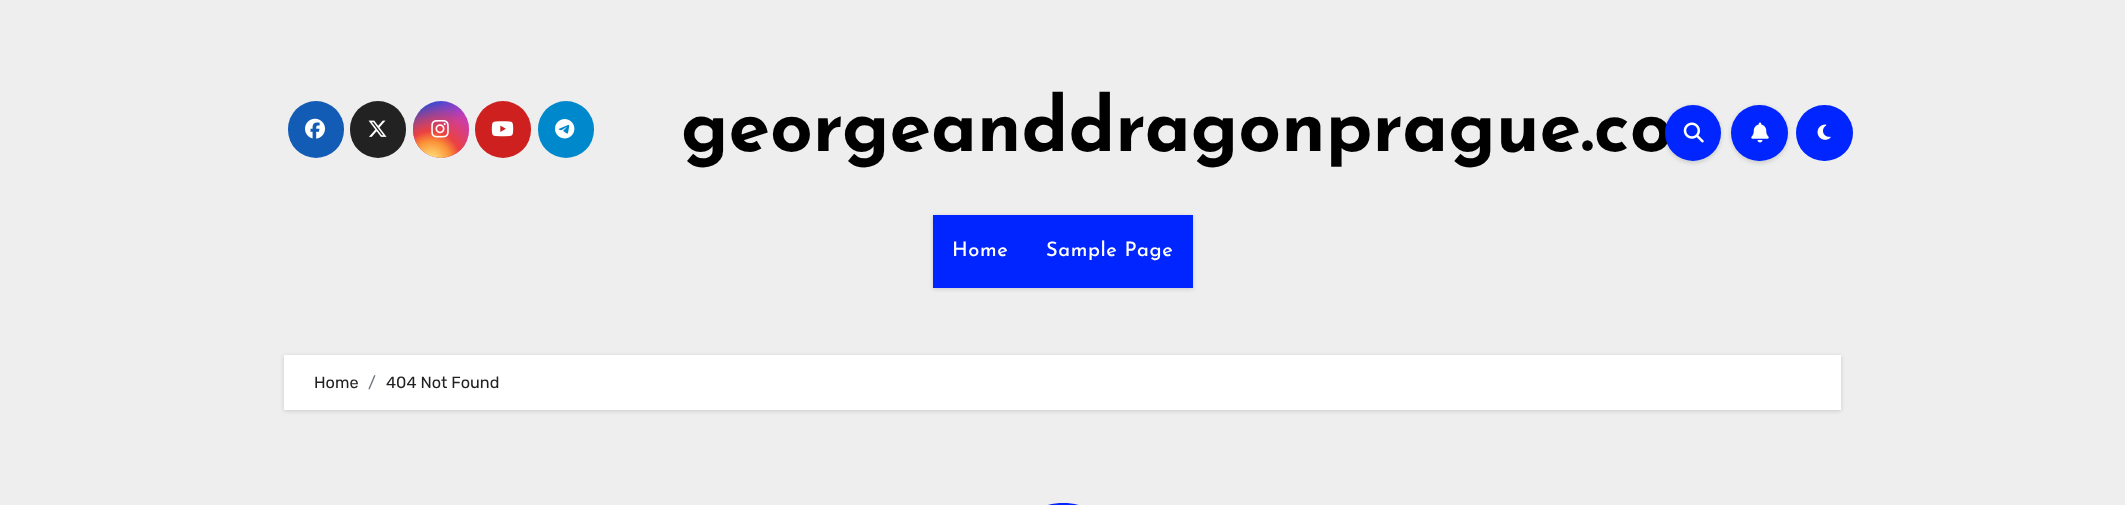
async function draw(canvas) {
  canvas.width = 2125
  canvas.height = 505
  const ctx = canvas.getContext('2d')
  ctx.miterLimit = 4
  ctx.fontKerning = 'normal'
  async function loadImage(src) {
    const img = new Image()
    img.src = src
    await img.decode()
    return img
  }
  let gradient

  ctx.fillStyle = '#eee'
  ctx.fillRect(0, 0, 2125, 505)
  ctx.fillStyle = '#135cb6'
  ctx.beginPath()
  ctx.roundRect(288, 101, 56, 57, 28)
  ctx.fill()
  ctx.drawImage(await loadImage('image0.png'), 305, 118, 20, 21)
  ctx.fillStyle = '#222'
  ctx.beginPath()
  ctx.roundRect(350, 101, 56, 57, 28)
  ctx.fill()
  ctx.drawImage(await loadImage('image1.png'), 368, 120, 19, 17)
  gradient = ctx.createLinearGradient(413, 101, 469, 158)
  gradient.addColorStop(0.12, '#234bd7')
  gradient.addColorStop(0.58, '#c33cbe')
  ctx.fillStyle = gradient
  ctx.beginPath()
  ctx.roundRect(413, 101, 56, 57, 28)
  ctx.fill()
  gradient = ctx.createRadialGradient(431, 161, 0, 431, 161, 71)
  gradient.addColorStop(0, '#ffe17d')
  gradient.addColorStop(0.1, '#ffcd69')
  gradient.addColorStop(0.28, '#fa9137')
  gradient.addColorStop(0.42, '#eb4141')
  gradient.addColorStop(0.82, '#eb414100')
  ctx.fillStyle = gradient
  ctx.beginPath()
  ctx.roundRect(413, 101, 56, 57, 28)
  ctx.fill()
  ctx.drawImage(await loadImage('image2.png'), 431, 120, 18, 18)
  ctx.fillStyle = '#cd201f'
  ctx.beginPath()
  ctx.roundRect(475, 101, 56, 57, 28)
  ctx.fill()
  ctx.drawImage(await loadImage('image3.png'), 491, 121, 23, 16)
  ctx.fillStyle = '#08c'
  ctx.beginPath()
  ctx.roundRect(538, 101, 56, 57, 28)
  ctx.fill()
  ctx.drawImage(await loadImage('image4.png'), 555, 119, 20, 20)
  ctx.font = 'bold 75px Josefin Sans'
  ctx.fillStyle = '#000'
  ctx.fillText('georgeanddragonprague.co', 681, 151)
  ctx.fillStyle = '#00000026'
  ctx.filter = 'blur(2px)'
  ctx.beginPath()
  ctx.roundRect(1665, 106, 56, 57, 28)
  ctx.fill()
  ctx.filter = 'none'
  ctx.fillStyle = '#0025ff'
  ctx.beginPath()
  ctx.arc(1693, 133, 28, 0, 2 * Math.PI)
  ctx.fill()
  ctx.drawImage(await loadImage('image5.png'), 1683, 122, 21, 21)
  ctx.fillStyle = '#00000026'
  ctx.filter = 'blur(2px)'
  ctx.beginPath()
  ctx.roundRect(1731, 106, 57, 57, 28.5)
  ctx.fill()
  ctx.filter = 'none'
  ctx.fillStyle = '#0025ff'
  ctx.beginPath()
  ctx.roundRect(1731, 105, 57, 56, 28)
  ctx.fill()
  ctx.drawImage(await loadImage('image6.png'), 1751, 122, 18, 21)
  ctx.beginPath()
  ctx.roundRect(1796, 105, 57, 56, 28)
  ctx.fill()
  ctx.drawImage(await loadImage('image7.png'), 1817, 124, 14, 16)
  ctx.fillStyle = '#00000026'
  ctx.filter = 'blur(2px)'
  ctx.beginPath()
  ctx.rect(933, 216, 260, 73)
  ctx.fill()
  ctx.filter = 'none'
  ctx.fillStyle = '#0025ff'
  ctx.fillRect(933, 215, 260, 73)
  ctx.letterSpacing = '0.6px'
  ctx.font = '500 20px Josefin Sans'
  ctx.fillStyle = '#fff'
  ctx.fillText('Home', 952, 256)
  ctx.fillText('Sample Page', 1046, 256)
  ctx.fillStyle = '#00000026'
  ctx.filter = 'blur(2px)'
  ctx.beginPath()
  ctx.rect(284, 356, 1557, 55)
  ctx.fill()
  ctx.filter = 'none'
  ctx.fillStyle = '#fff'
  ctx.fillRect(284, 355, 1557, 55)
  ctx.letterSpacing = '0px'
  ctx.font = '300 16.25px Rubik'
  ctx.fillStyle = '#212121'
  ctx.fillText('Home', 314, 388)
  ctx.fillStyle = '#6c757d'
  ctx.fillText('/', 368, 388)
  ctx.fillStyle = '#212121'
  ctx.fillText('404 Not Found', 386, 388)
  ctx.fillStyle = '#0025ff'
  ctx.beginPath()
  ctx.moveTo(1090, 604)
  ctx.lineTo(1024, 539)
  ctx.bezierCurveTo(1019, 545, 1017, 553, 1016, 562)
  ctx.bezierCurveTo(1012, 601, 1058, 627, 1090, 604)
  ctx.closePath()
  ctx.moveTo(1101, 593)
  ctx.bezierCurveTo(1124, 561, 1098, 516, 1059, 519)
  ctx.bezierCurveTo(1050, 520, 1042, 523, 1035, 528)
  ctx.closePath()
  ctx.moveTo(1000, 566)
  ctx.bezierCurveTo(1001, 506, 1076, 480, 1112, 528)
  ctx.bezierCurveTo(1120, 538, 1125, 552, 1125, 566)
  ctx.bezierCurveTo(1125, 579, 1120, 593, 1112, 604)
  ctx.bezierCurveTo(1076, 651, 1001, 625, 1000, 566)
  ctx.closePath()
  ctx.fill()
}

draw(document.querySelector('canvas'))
